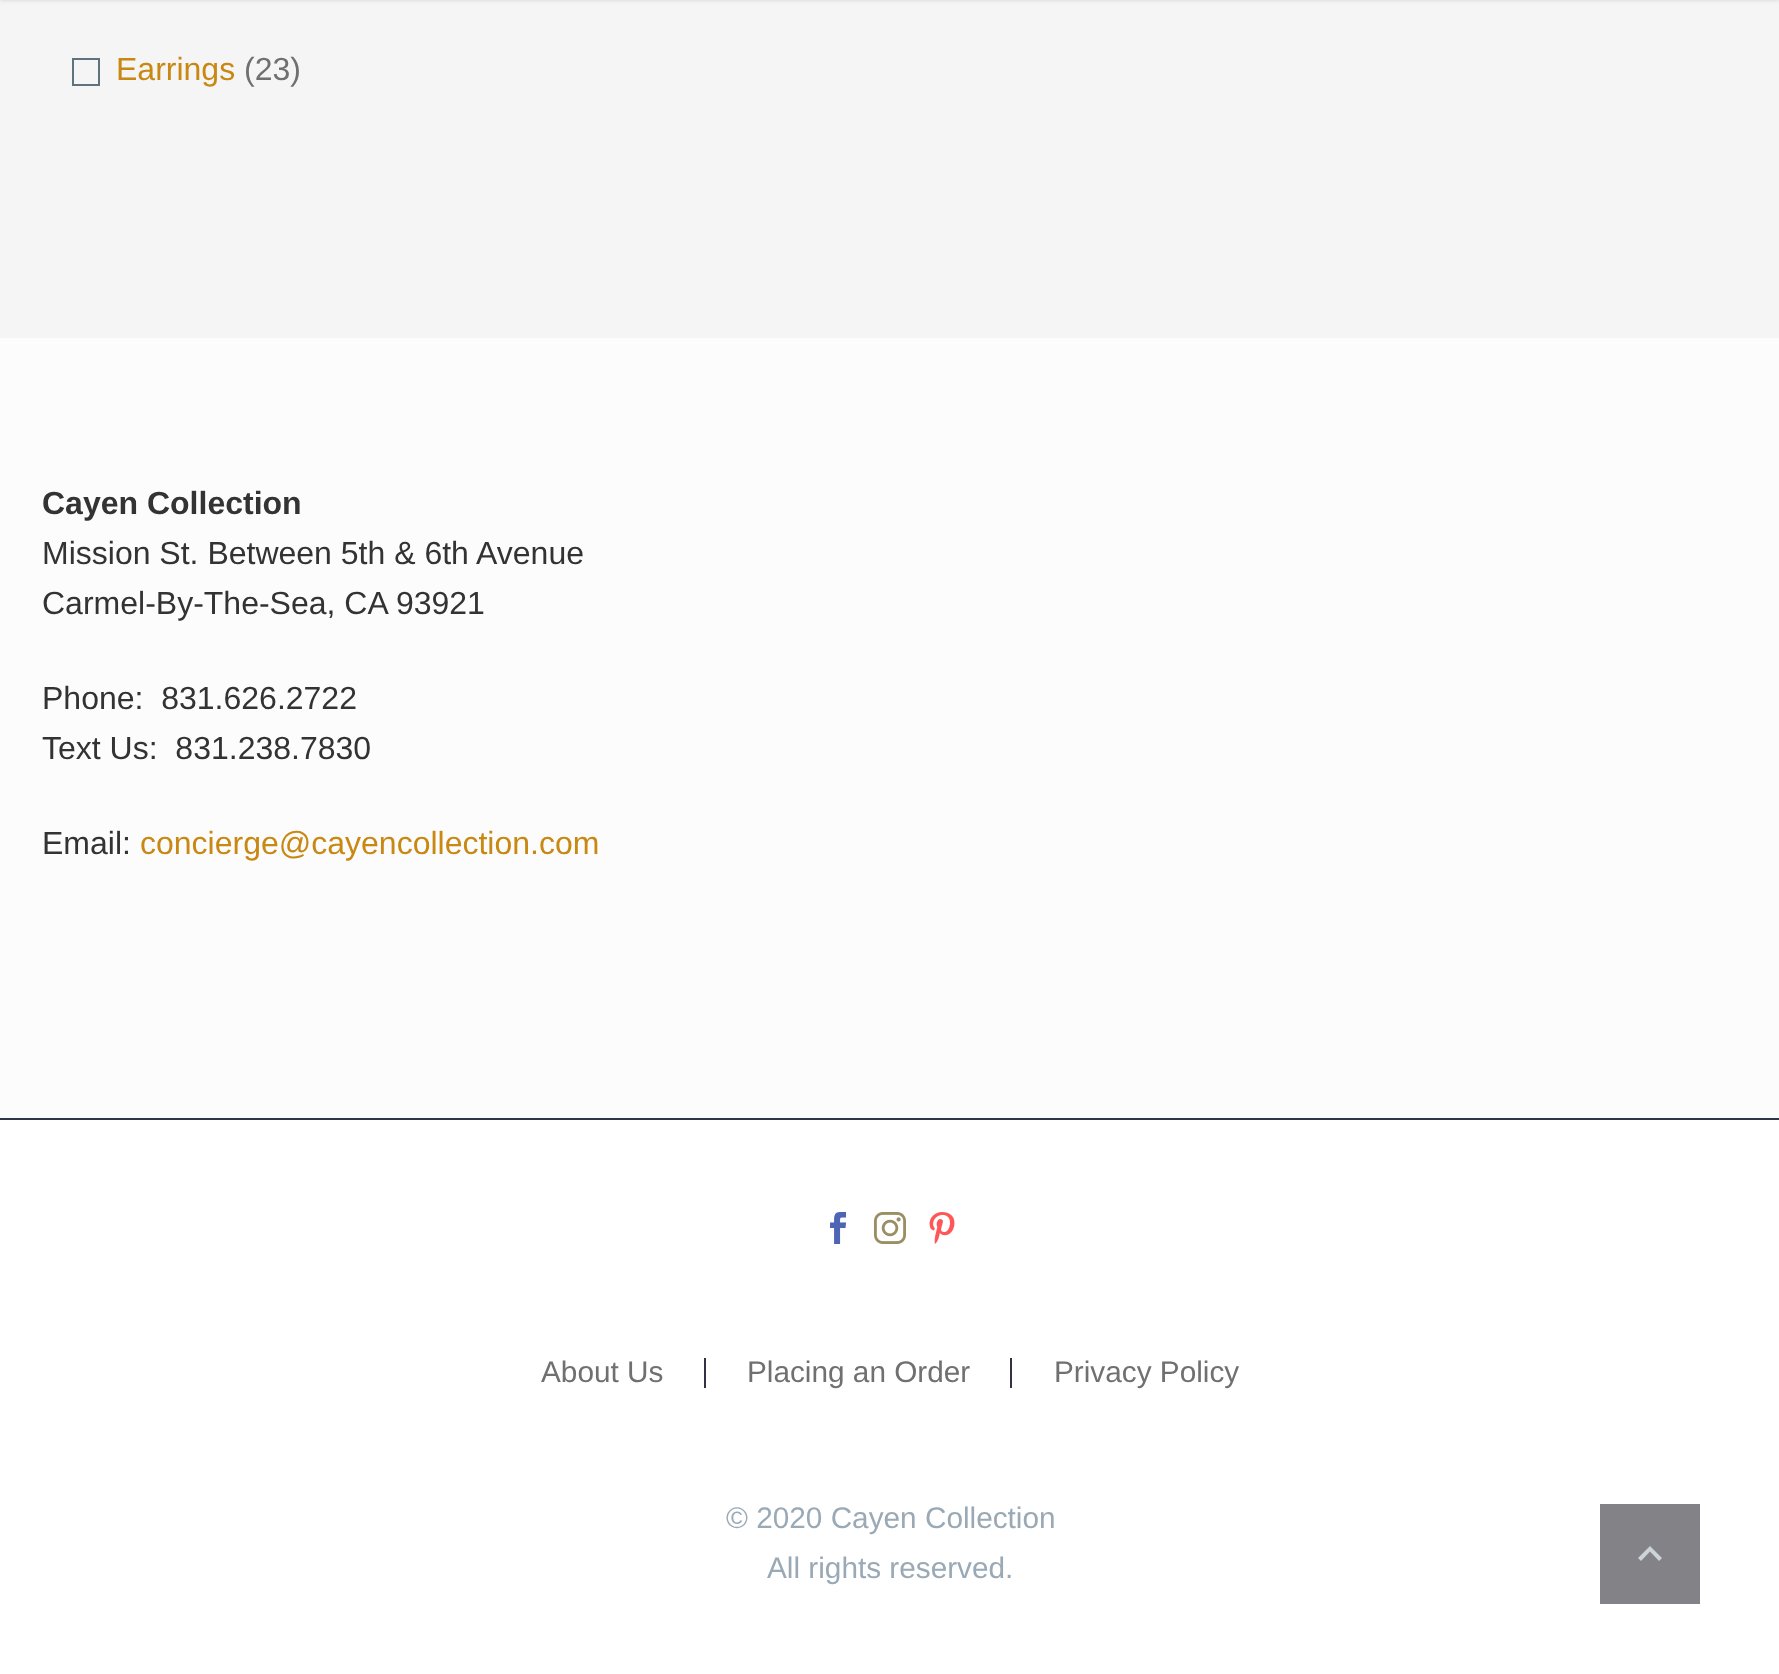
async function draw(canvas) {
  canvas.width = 1779
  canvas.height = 1674
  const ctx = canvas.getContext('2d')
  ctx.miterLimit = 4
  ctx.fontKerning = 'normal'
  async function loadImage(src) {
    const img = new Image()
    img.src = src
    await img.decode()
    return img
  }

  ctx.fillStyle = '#f5f5f5'
  ctx.fillRect(0, 0, 1779, 1674)
  ctx.fillStyle = '#38455433'
  ctx.filter = 'blur(2px)'
  ctx.beginPath()
  ctx.rect(0, -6, 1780, 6)
  ctx.fill()
  ctx.filter = 'none'
  ctx.strokeStyle = '#5f727f'
  ctx.lineWidth = 2
  ctx.strokeRect(73, 59, 26, 26)
  ctx.font = '32px Liberation Sans'
  ctx.fillStyle = '#c88812'
  ctx.fillText('Earrings', 116, 80)
  ctx.fillStyle = '#707070'
  ctx.fillText('(23)', 244, 80)
  ctx.fillStyle = '#fcfcfc'
  ctx.fillRect(0, 338, 1779, 780)
  ctx.font = 'bold 32px Liberation Sans'
  ctx.fillStyle = '#333'
  ctx.fillText('Cayen Collection', 42, 514)
  ctx.font = '32px Liberation Sans'
  ctx.fillText('Mission St. Between 5th & 6th Avenue', 42, 564)
  ctx.fillText('Carmel-By-The-Sea, CA 93921', 42, 614)
  ctx.fillText('Phone:  831.626.2722', 42, 709)
  ctx.fillText('Text Us:  831.238.7830', 42, 759)
  ctx.fillText('Email:', 42, 854)
  ctx.fillStyle = '#c88812'
  ctx.fillText('concierge@cayencollection.com', 140, 854)
  ctx.fillStyle = '#fff'
  ctx.fillRect(0, 1120, 1779, 554)
  ctx.fillStyle = '#313646'
  ctx.fillRect(0, 1118, 1779, 2)
  ctx.drawImage(await loadImage('image0.png'), 830, 1212, 17, 32)
  ctx.drawImage(await loadImage('image1.png'), 874, 1212, 32, 32)
  ctx.drawImage(await loadImage('image2.png'), 929, 1212, 26, 32)
  ctx.font = '29.75px Liberation Sans'
  ctx.fillStyle = '#707070'
  ctx.fillText('About Us', 541, 1382)
  ctx.fillStyle = '#333146'
  ctx.fillRect(704, 1358, 2, 30)
  ctx.fillStyle = '#707070'
  ctx.fillText('Placing an Order', 747, 1382)
  ctx.fillStyle = '#333146'
  ctx.fillRect(1010, 1358, 2, 30)
  ctx.fillStyle = '#707070'
  ctx.fillText('Privacy Policy', 1054, 1382)
  ctx.fillStyle = '#99a9b5'
  ctx.fillText('© 2020 Cayen Collection', 726, 1528)
  ctx.fillText('All rights reserved.', 767, 1578)
  ctx.fillStyle = '#838387'
  ctx.fillRect(1600, 1504, 100, 100)
  ctx.fillStyle = '#ccd4da'
  ctx.beginPath()
  ctx.moveTo(1641, 1561)
  ctx.lineTo(1650, 1551.5)
  ctx.lineTo(1659, 1561)
  ctx.lineTo(1662, 1558)
  ctx.lineTo(1650, 1546)
  ctx.lineTo(1638, 1558)
  ctx.closePath()
  ctx.fill()
}

draw(document.querySelector('canvas'))
